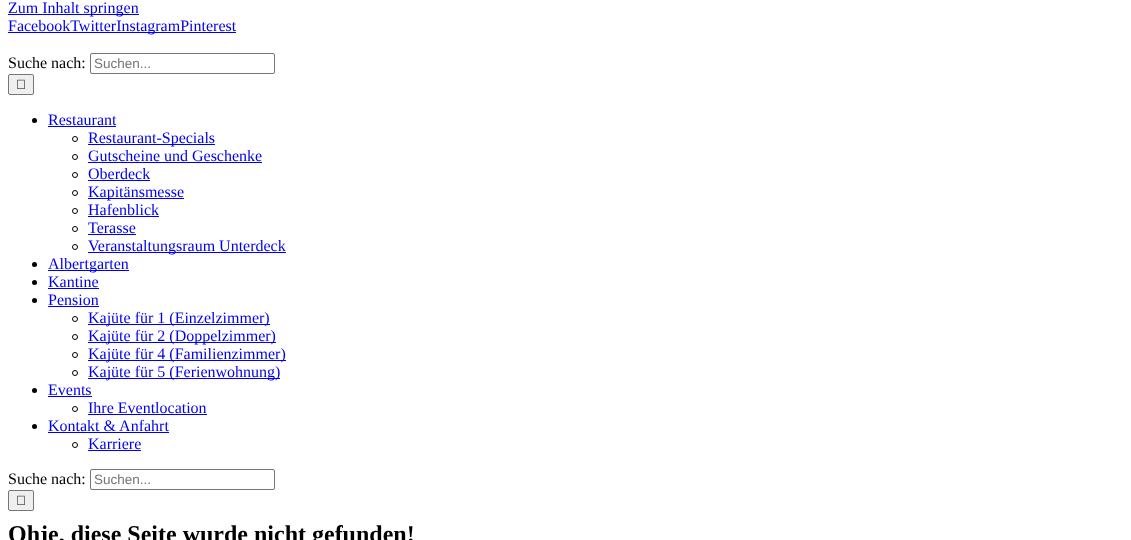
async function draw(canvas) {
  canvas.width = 1131
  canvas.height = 540
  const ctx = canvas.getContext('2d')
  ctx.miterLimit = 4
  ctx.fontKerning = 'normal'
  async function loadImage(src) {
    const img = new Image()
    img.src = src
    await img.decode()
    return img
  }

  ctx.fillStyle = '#fff'
  ctx.fillRect(0, 0, 1131, 540)
  ctx.fillStyle = '#00e'
  ctx.fillRect(8, 14, 131, 1)
  ctx.font = '16px Liberation Serif'
  ctx.fillText('Zum Inhalt springen', 8, 13)
  ctx.fillRect(8, 32, 228, 1)
  ctx.fillText('FacebookTwitterInstagramPinterest', 8, 31)
  ctx.fillStyle = '#000'
  ctx.fillText('Suche nach:', 8, 68)
  ctx.beginPath()
  ctx.roundRect(90.5, 53.5, 184, 20, 1.5)
  ctx.strokeStyle = '#767676'
  ctx.stroke()
  ctx.font = '13.5px Liberation Sans'
  ctx.fillStyle = '#757575'
  ctx.fillText('Suchen...', 94, 68)
  ctx.fillStyle = '#efefef'
  ctx.beginPath()
  ctx.roundRect(8.5, 74.5, 25, 20, 1.5)
  ctx.fill()
  ctx.stroke()
  ctx.drawImage(await loadImage('image0.png'), 17, 79, 8, 10)
  ctx.fillStyle = '#000'
  ctx.beginPath()
  ctx.arc(34.5, 120.5, 2.5, 0, 2 * Math.PI)
  ctx.fill()
  ctx.font = '16px Liberation Serif'
  ctx.fillStyle = '#00e'
  ctx.fillText('Restaurant', 48, 125)
  ctx.fillRect(48, 126, 68, 1)
  ctx.beginPath()
  ctx.arc(75, 139, 2.5, 0, 2 * Math.PI)
  ctx.strokeStyle = '#000'
  ctx.stroke()
  ctx.fillRect(88, 144, 127, 1)
  ctx.fillText('Restaurant-Specials', 88, 143)
  ctx.beginPath()
  ctx.arc(75, 157, 2.5, 0, 2 * Math.PI)
  ctx.stroke()
  ctx.fillText('Gutscheine und Geschenke', 88, 161)
  ctx.fillRect(88, 162, 174, 1)
  ctx.beginPath()
  ctx.arc(75, 175, 2.5, 0, 2 * Math.PI)
  ctx.stroke()
  ctx.fillText('Oberdeck', 88, 179)
  ctx.fillRect(88, 180, 62, 1)
  ctx.beginPath()
  ctx.arc(75, 193, 2.5, 0, 2 * Math.PI)
  ctx.stroke()
  ctx.fillRect(88, 198, 96, 1)
  ctx.fillText('Kapitänsmesse', 88, 197)
  ctx.beginPath()
  ctx.arc(75, 211, 2.5, 0, 2 * Math.PI)
  ctx.stroke()
  ctx.fillText('Hafenblick', 88, 215)
  ctx.fillRect(88, 216, 71, 1)
  ctx.beginPath()
  ctx.arc(75, 229, 2.5, 0, 2 * Math.PI)
  ctx.stroke()
  ctx.fillText('Terasse', 88, 233)
  ctx.fillRect(88, 234, 48, 1)
  ctx.beginPath()
  ctx.arc(75, 247, 2.5, 0, 2 * Math.PI)
  ctx.stroke()
  ctx.fillRect(88, 252, 198, 1)
  ctx.fillText('Veranstaltungsraum Unterdeck', 88, 251)
  ctx.fillStyle = '#000'
  ctx.beginPath()
  ctx.arc(34.5, 264.5, 2.5, 0, 2 * Math.PI)
  ctx.fill()
  ctx.fillStyle = '#00e'
  ctx.fillRect(48, 270, 81, 1)
  ctx.fillText('Albertgarten', 48, 269)
  ctx.fillStyle = '#000'
  ctx.beginPath()
  ctx.arc(34.5, 282.5, 2.5, 0, 2 * Math.PI)
  ctx.fill()
  ctx.fillStyle = '#00e'
  ctx.fillText('Kantine', 48, 287)
  ctx.fillRect(48, 288, 51, 1)
  ctx.fillStyle = '#000'
  ctx.beginPath()
  ctx.arc(34.5, 300.5, 2.5, 0, 2 * Math.PI)
  ctx.fill()
  ctx.fillStyle = '#00e'
  ctx.fillText('Pension', 48, 305)
  ctx.fillRect(48, 306, 51, 1)
  ctx.beginPath()
  ctx.arc(75, 319, 2.5, 0, 2 * Math.PI)
  ctx.stroke()
  ctx.fillRect(88, 324, 182, 1)
  ctx.fillText('Kajüte für 1 (Einzelzimmer)', 88, 323)
  ctx.beginPath()
  ctx.arc(75, 337, 2.5, 0, 2 * Math.PI)
  ctx.stroke()
  ctx.fillRect(88, 342, 188, 1)
  ctx.fillText('Kajüte für 2 (Doppelzimmer)', 88, 341)
  ctx.beginPath()
  ctx.arc(75, 355, 2.5, 0, 2 * Math.PI)
  ctx.stroke()
  ctx.fillRect(88, 360, 198, 1)
  ctx.fillText('Kajüte für 4 (Familienzimmer)', 88, 359)
  ctx.beginPath()
  ctx.arc(75, 373, 2.5, 0, 2 * Math.PI)
  ctx.stroke()
  ctx.fillRect(88, 378, 192, 1)
  ctx.fillText('Kajüte für 5 (Ferienwohnung)', 88, 377)
  ctx.fillStyle = '#000'
  ctx.beginPath()
  ctx.arc(34.5, 390.5, 2.5, 0, 2 * Math.PI)
  ctx.fill()
  ctx.fillStyle = '#00e'
  ctx.fillText('Events', 48, 395)
  ctx.fillRect(48, 396, 44, 1)
  ctx.beginPath()
  ctx.arc(75, 409, 2.5, 0, 2 * Math.PI)
  ctx.stroke()
  ctx.fillText('Ihre Eventlocation', 88, 413)
  ctx.fillRect(88, 414, 119, 1)
  ctx.fillStyle = '#000'
  ctx.beginPath()
  ctx.arc(34.5, 426.5, 2.5, 0, 2 * Math.PI)
  ctx.fill()
  ctx.fillStyle = '#00e'
  ctx.fillText('Kontakt & Anfahrt', 48, 431)
  ctx.fillRect(48, 432, 121, 1)
  ctx.beginPath()
  ctx.arc(75, 445, 2.5, 0, 2 * Math.PI)
  ctx.stroke()
  ctx.fillText('Karriere', 88, 449)
  ctx.fillRect(88, 450, 53, 1)
  ctx.fillStyle = '#000'
  ctx.fillText('Suche nach:', 8, 484)
  ctx.beginPath()
  ctx.roundRect(90.5, 469.5, 184, 20, 1.5)
  ctx.strokeStyle = '#767676'
  ctx.stroke()
  ctx.font = '13.5px Liberation Sans'
  ctx.fillStyle = '#757575'
  ctx.fillText('Suchen...', 94, 484)
  ctx.fillStyle = '#efefef'
  ctx.beginPath()
  ctx.roundRect(8.5, 490.5, 25, 20, 1.5)
  ctx.fill()
  ctx.stroke()
  ctx.drawImage(await loadImage('image0.png'), 17, 495, 8, 10)
  ctx.font = 'bold 24px Liberation Serif'
  ctx.fillStyle = '#000'
  ctx.fillText('Ohje, diese Seite wurde nicht gefunden!', 8, 542)
}

draw(document.querySelector('canvas'))
